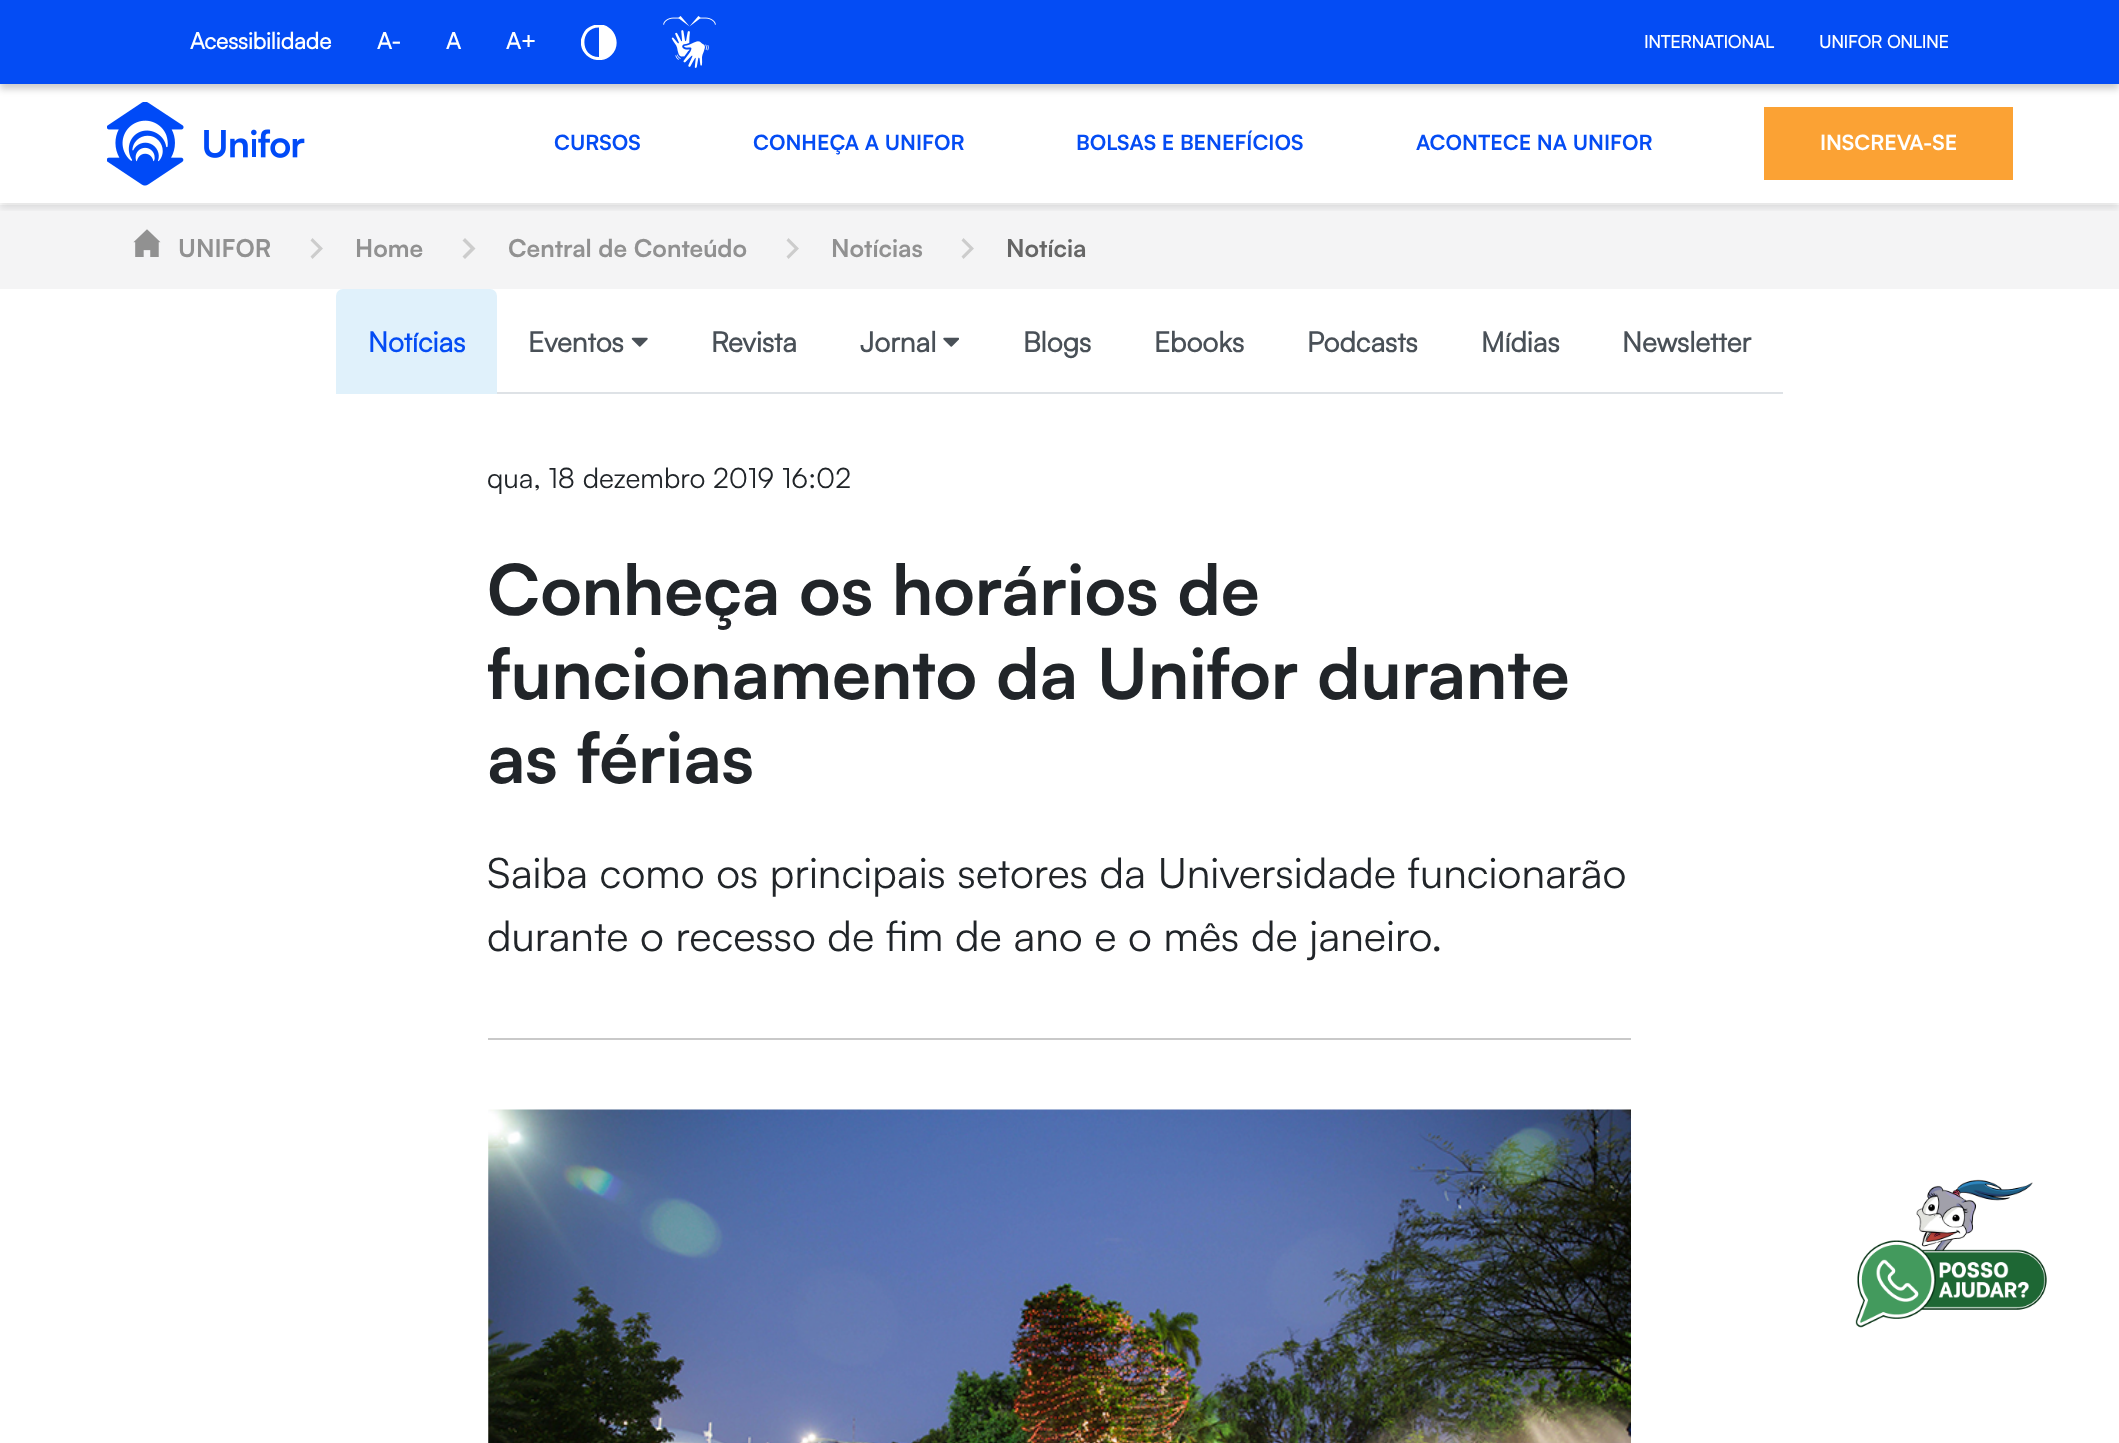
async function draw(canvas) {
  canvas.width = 2119
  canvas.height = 1443
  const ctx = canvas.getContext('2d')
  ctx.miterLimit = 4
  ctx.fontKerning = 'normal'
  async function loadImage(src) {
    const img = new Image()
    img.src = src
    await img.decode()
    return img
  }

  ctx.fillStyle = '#fff'
  ctx.fillRect(0, 0, 2119, 1443)
  ctx.fillStyle = '#00000033'
  ctx.filter = 'blur(3.5px)'
  ctx.beginPath()
  ctx.rect(0, 5, 2119, 84)
  ctx.fill()
  ctx.filter = 'none'
  ctx.fillStyle = '#f4f4f5'
  ctx.fillRect(0, 205, 2119, 84)
  ctx.save()
  ctx.beginPath()
  ctx.rect(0, 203, 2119, 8)
  ctx.clip()
  ctx.fillStyle = '#0000001a'
  ctx.filter = 'blur(3.5px)'
  ctx.beginPath()
  ctx.rect(0, 89, 2119, 119)
  ctx.fill()
  ctx.filter = 'none'
  ctx.restore()
  ctx.fillStyle = '#044cf4'
  ctx.fillRect(0, 0, 2119, 84)
  ctx.font = 'bold 22.75px "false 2"'
  ctx.fillStyle = '#fff'
  ctx.fillText('Acessibilidade', 190, 49)
  ctx.fillText('A-', 377, 49)
  ctx.fillText('A', 446, 49)
  ctx.fillText('A+', 506, 49)
  ctx.save()
  ctx.beginPath()
  ctx.rect(581, 25, 37, 35)
  ctx.clip()
  ctx.beginPath()
  ctx.moveTo(586, 29.5)
  ctx.bezierCurveTo(583.5, 32.5, 582, 36, 581, 39.5)
  ctx.bezierCurveTo(578.5, 56.5, 599.5, 67, 611.5, 55)
  ctx.bezierCurveTo(623.5, 43, 613, 22, 596, 24.5)
  ctx.bezierCurveTo(592.5, 25.5, 589, 27, 586, 29.5)
  ctx.closePath()
  ctx.moveTo(599, 57)
  ctx.bezierCurveTo(579.5, 57, 579.5, 27.5, 599, 27.5)
  ctx.closePath()
  ctx.fill()
  ctx.restore()
  ctx.drawImage(await loadImage('image0.png'), 663, 16, 53, 52)
  ctx.font = 'bold 17.5px "false 2"'
  ctx.fillText('INTERNATIONAL', 1644, 48)
  ctx.fillText('UNIFOR ONLINE', 1819, 48)
  ctx.drawImage(await loadImage('image1.png'), 107, 102, 198, 84)
  ctx.font = 'bold 21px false'
  ctx.fillStyle = '#044cf4'
  ctx.fillText('CURSOS', 554, 150)
  ctx.fillText('CONHEÇA A UNIFOR', 753, 150)
  ctx.fillText('BOLSAS E BENEFÍCIOS', 1076, 150)
  ctx.fillText('ACONTECE NA UNIFOR', 1416, 150)
  ctx.fillStyle = '#fba234'
  ctx.fillRect(1764, 107, 249, 73)
  ctx.fillStyle = '#fff'
  ctx.fillText('INSCREVA-SE', 1820, 150)
  ctx.drawImage(await loadImage('image2.png'), 133, 229, 28, 28)
  ctx.font = 'bold 24.5px false'
  ctx.fillStyle = '#919191'
  ctx.fillText('UNIFOR', 178, 257)
  ctx.fillStyle = '#ccc'
  ctx.beginPath()
  ctx.moveTo(312.5, 238)
  ctx.lineTo(310.5, 240.5)
  ctx.lineTo(318.5, 248.5)
  ctx.lineTo(310.5, 256.5)
  ctx.lineTo(312.5, 259)
  ctx.lineTo(323, 248.5)
  ctx.closePath()
  ctx.fill()
  ctx.fillStyle = '#919191'
  ctx.fillText('Home', 355, 257)
  ctx.fillStyle = '#ccc'
  ctx.beginPath()
  ctx.moveTo(465, 238)
  ctx.lineTo(462.5, 240.5)
  ctx.lineTo(470.5, 248.5)
  ctx.lineTo(462.5, 256.5)
  ctx.lineTo(465, 259)
  ctx.lineTo(475.5, 248.5)
  ctx.closePath()
  ctx.fill()
  ctx.fillStyle = '#919191'
  ctx.fillText('Central de Conteúdo', 508, 257)
  ctx.fillStyle = '#ccc'
  ctx.beginPath()
  ctx.moveTo(788.5, 238)
  ctx.lineTo(786.5, 240.5)
  ctx.lineTo(794.5, 248.5)
  ctx.lineTo(786.5, 256.5)
  ctx.lineTo(788.5, 259)
  ctx.lineTo(799, 248.5)
  ctx.closePath()
  ctx.fill()
  ctx.fillStyle = '#919191'
  ctx.fillText('Notícias', 831, 257)
  ctx.fillStyle = '#ccc'
  ctx.beginPath()
  ctx.moveTo(963.5, 238)
  ctx.lineTo(961.5, 240.5)
  ctx.lineTo(969.5, 248.5)
  ctx.lineTo(961.5, 256.5)
  ctx.lineTo(963.5, 259)
  ctx.lineTo(974, 248.5)
  ctx.closePath()
  ctx.fill()
  ctx.fillStyle = '#666'
  ctx.fillText('Notícia', 1006, 257)
  ctx.fillStyle = '#dee2e6'
  ctx.fillRect(497, 392, 1286, 2)
  ctx.fillStyle = '#e0f1fb'
  ctx.beginPath()
  ctx.roundRect(336, 289, 161, 105, [7, 7, 0, 0])
  ctx.fill()
  ctx.font = 'bold 28px "false 2"'
  ctx.fillStyle = '#044cf4'
  ctx.fillText('Notícias', 368, 352)
  ctx.fillStyle = '#495057'
  ctx.fillText('Eventos', 528, 352)
  ctx.drawImage(await loadImage('image3.png'), 631, 337, 17, 10)
  ctx.fillText('Revista', 711, 352)
  ctx.fillText('Jornal', 860, 352)
  ctx.drawImage(await loadImage('image4.png'), 943, 337, 16, 10)
  ctx.fillText('Blogs', 1023, 352)
  ctx.fillText('Ebooks', 1154, 352)
  ctx.fillText('Podcasts', 1307, 352)
  ctx.fillText('Mídias', 1481, 352)
  ctx.fillText('Newsletter', 1622, 352)
  ctx.font = '28px false'
  ctx.fillStyle = '#212529'
  ctx.fillText('qua, 18 dezembro 2019 16:02', 487, 488)
  ctx.font = 'bold 70px false'
  ctx.fillText('Conheça os horários de', 487, 615)
  ctx.fillText('funcionamento da Unifor durante', 487, 699)
  ctx.fillText('as férias', 487, 783)
  ctx.font = '42px false'
  ctx.fillText('Saiba como os principais setores da Universidade funcionarão', 487, 888)
  ctx.fillText('durante o recesso de fim de ano e o mês de janeiro.', 487, 951)
  ctx.fillStyle = '#c9c9c9'
  ctx.fillRect(488, 1038, 1143, 2)
  ctx.drawImage(await loadImage('image5.png'), 488, 1109, 1143, 334)
  ctx.drawImage(await loadImage('image6.png'), 1855, 1179, 192, 149)
}

draw(document.querySelector('canvas'))
